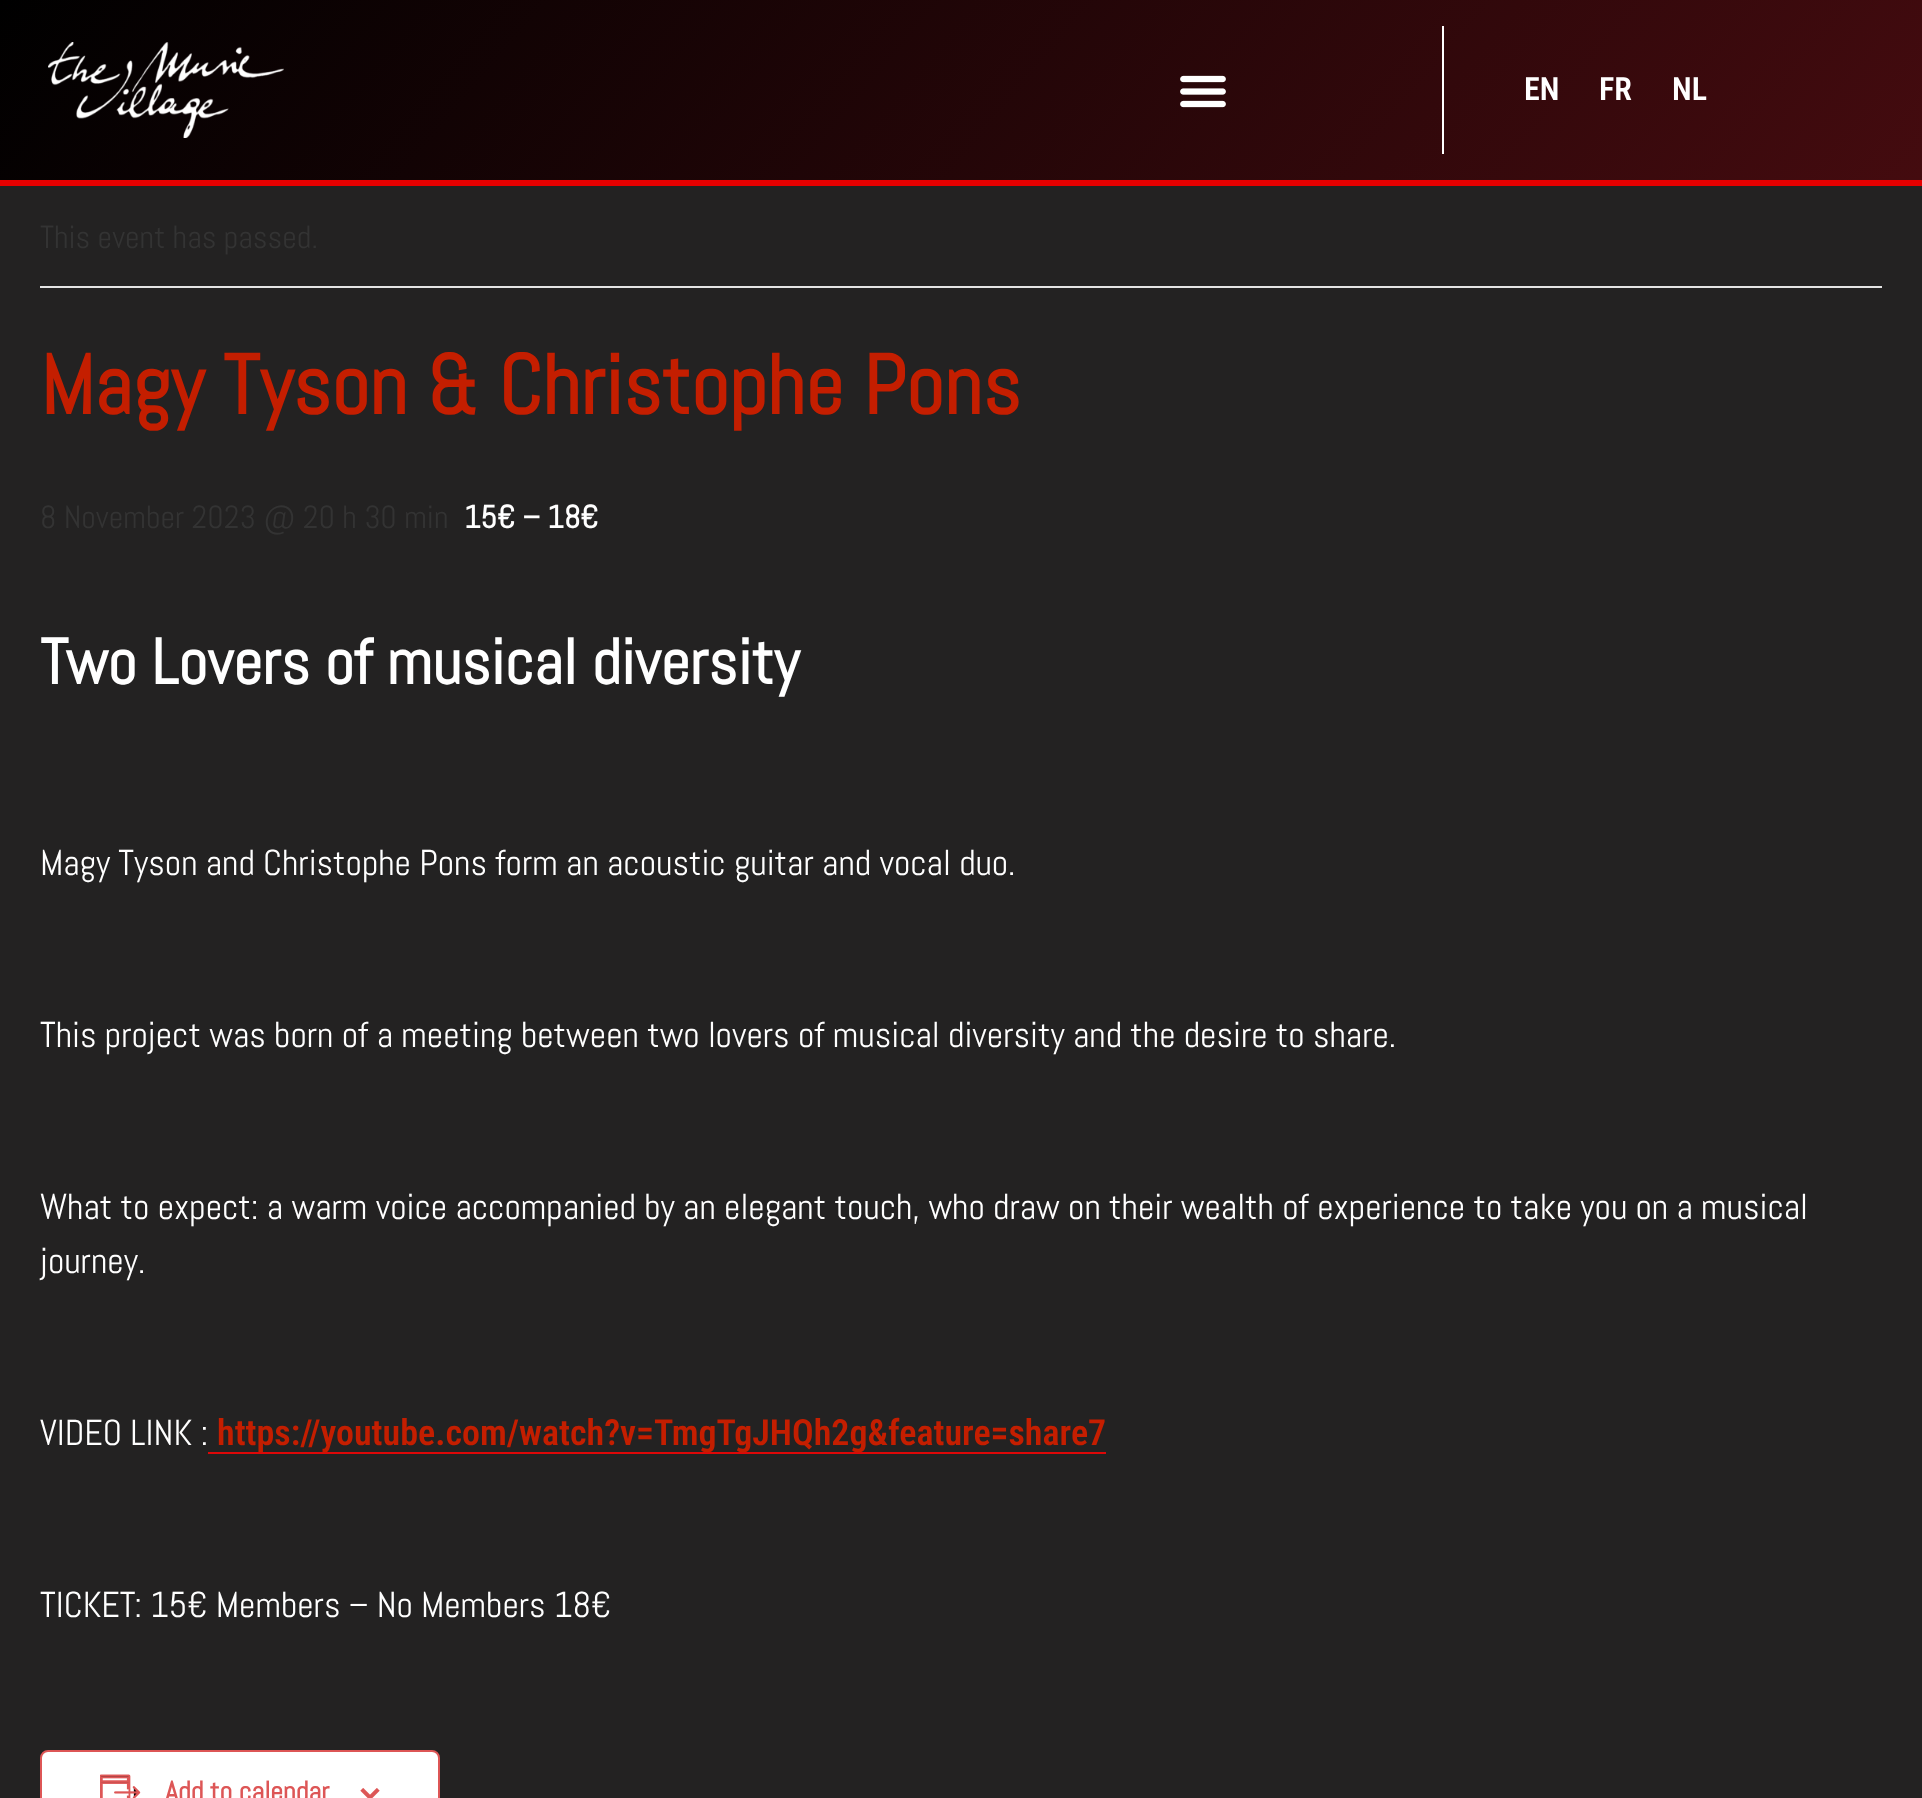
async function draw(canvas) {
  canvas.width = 1922
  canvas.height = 1798
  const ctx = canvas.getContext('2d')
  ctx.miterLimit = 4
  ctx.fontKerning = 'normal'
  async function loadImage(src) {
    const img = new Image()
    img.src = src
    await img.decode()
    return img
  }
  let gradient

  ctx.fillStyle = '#232222'
  ctx.fillRect(0, 0, 1922, 1798)
  gradient = ctx.createLinearGradient(353, -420, 1569, 600)
  gradient.addColorStop(0, '#000')
  gradient.addColorStop(1, '#440b0f')
  ctx.fillStyle = gradient
  ctx.fillRect(0, 0, 1922, 180)
  ctx.fillStyle = '#e60000'
  ctx.fillRect(0, 180, 1922, 6)
  ctx.drawImage(await loadImage('image0.png'), 48, 42, 236, 96)
  ctx.drawImage(await loadImage('image1.png'), 1180, 75, 46, 33)
  ctx.fillStyle = '#fff'
  ctx.fillRect(1442, 26, 2, 128)
  ctx.font = '600 32px Roboto Condensed'
  ctx.fillText('EN', 1524, 100)
  ctx.fillText('FR', 1599, 100)
  ctx.fillText('NL', 1672, 100)
  ctx.fillStyle = '#e4e4e4'
  ctx.fillRect(40, 286, 1842, 2)
  ctx.font = '32px Abel'
  ctx.fillStyle = '#333'
  ctx.fillText('This event has passed.', 40, 248)
  ctx.font = 'bold 84px Abel'
  ctx.fillStyle = '#c41e00'
  ctx.fillText('Magy Tyson & Christophe Pons', 40, 414)
  ctx.font = '32px Abel'
  ctx.fillStyle = '#333'
  ctx.fillText('8 November 2023 @ 20 h 30 min', 40, 528)
  ctx.font = 'bold 32px Abel'
  ctx.fillStyle = '#fff'
  ctx.fillText('15€ – 18€', 464, 528)
  ctx.font = 'bold 64px Abel'
  ctx.fillText('Two Lovers of musical diversity', 40, 684)
  ctx.font = '36px Abel'
  ctx.fillText('Magy Tyson and Christophe Pons form an acoustic guitar and vocal duo.', 40, 875)
  ctx.fillText('This project was born of a meeting between two lovers of musical diversity and the desire to share.', 40, 1047)
  ctx.fillText('What to expect: a warm voice accompanied by an elegant touch, who draw on their wealth of experience to take you on a musical', 40, 1219)
  ctx.fillText('journey.', 40, 1273)
  ctx.fillText('VIDEO LINK :', 40, 1445)
  ctx.fillStyle = '#dd0808'
  ctx.fillRect(208, 1452, 898, 2)
  ctx.font = '600 36px Roboto Condensed'
  ctx.fillStyle = '#c41e00'
  ctx.fillText('https://youtube.com/watch?v=TmgTgJHQh2g&feature=share7', 217, 1445)
  ctx.font = '36px Abel'
  ctx.fillStyle = '#fff'
  ctx.fillText('TICKET: 15€ Members – No Members 18€', 40, 1617)
  ctx.beginPath()
  ctx.roundRect(41, 1751, 398, 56, 7)
  ctx.fill()
  ctx.strokeStyle = '#dd5656'
  ctx.lineWidth = 2
  ctx.stroke()
  ctx.drawImage(await loadImage('image2.png'), 100, 1774, 41, 24)
  ctx.font = 'bold 28px Abel'
  ctx.fillStyle = '#dd5656'
  ctx.fillText('Add to calendar', 165, 1801)
  ctx.drawImage(await loadImage('image3.png'), 360, 1788, 20, 10)
}

draw(document.querySelector('canvas'))
